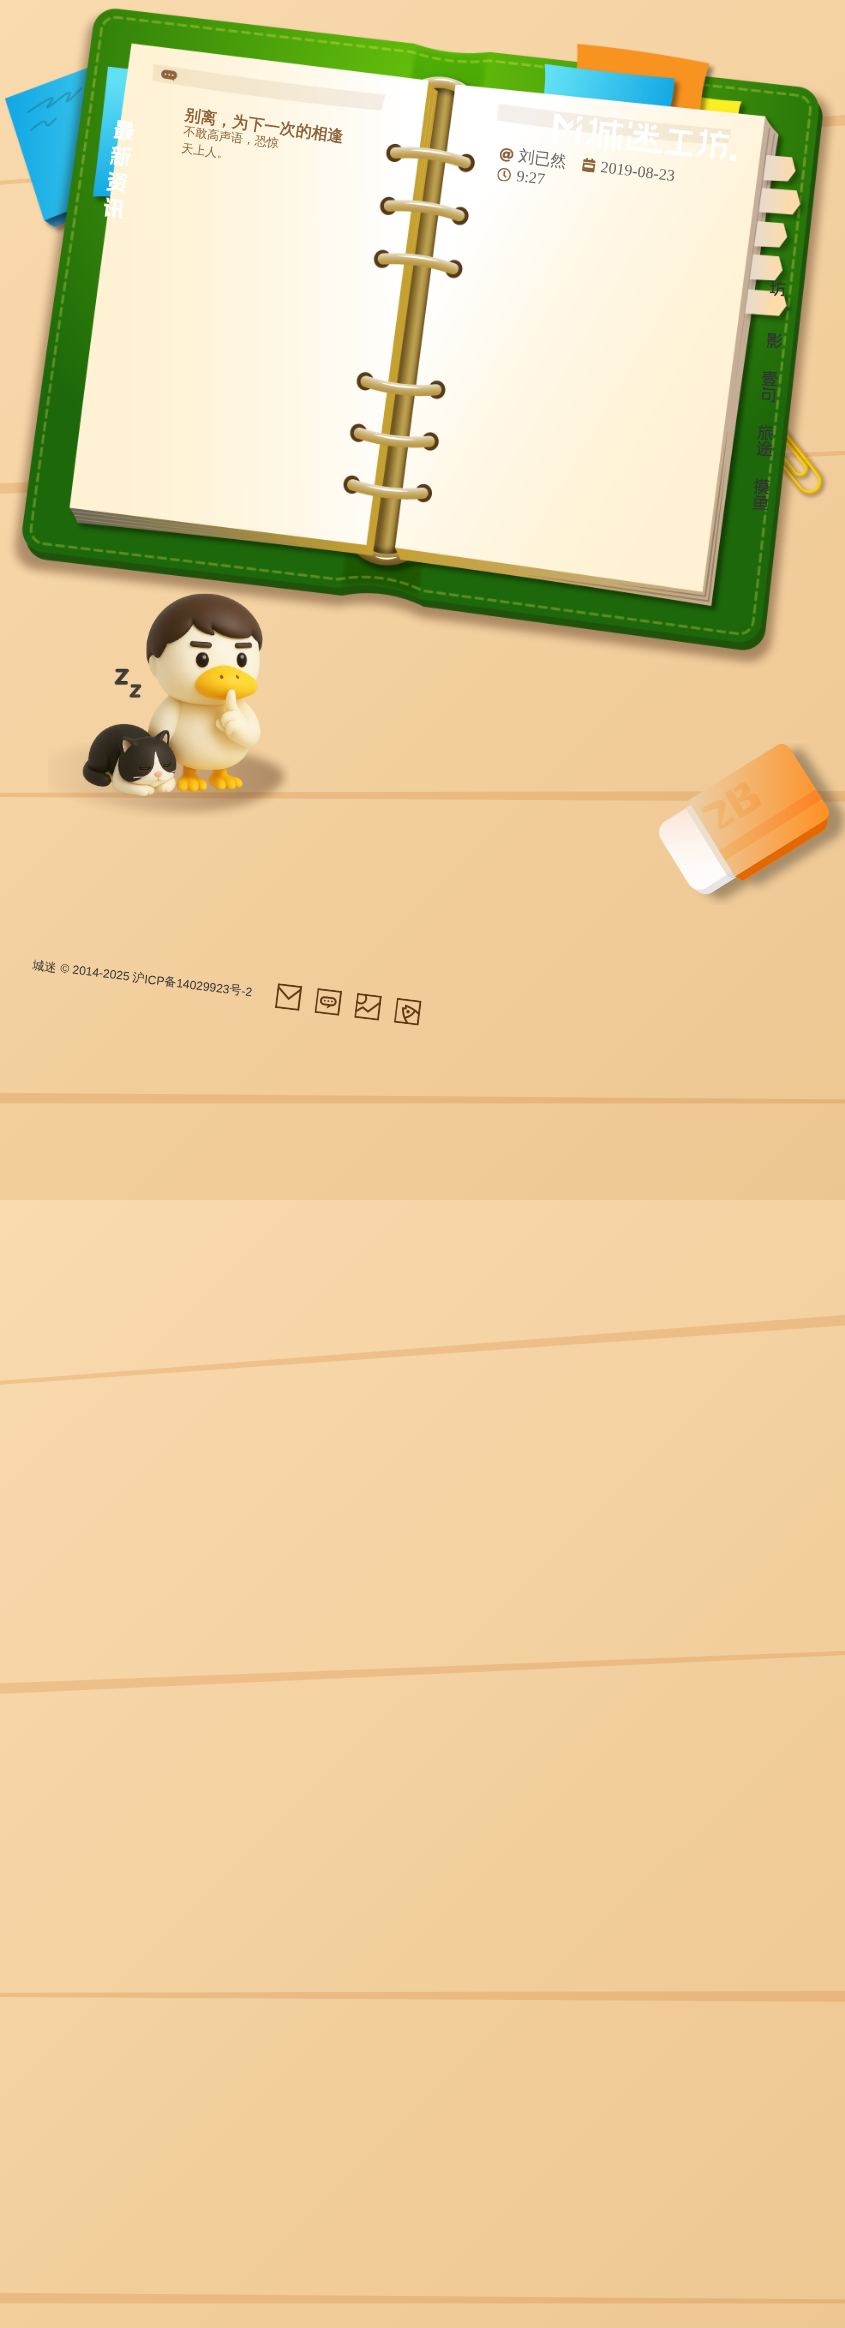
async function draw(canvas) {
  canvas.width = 845
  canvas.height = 2328
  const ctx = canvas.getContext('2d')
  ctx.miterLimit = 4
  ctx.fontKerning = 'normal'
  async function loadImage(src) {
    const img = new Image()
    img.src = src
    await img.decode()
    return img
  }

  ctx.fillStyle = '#fff'
  ctx.fillRect(0, 0, 845, 2328)
  ctx.drawImage(await loadImage('image0.png'), 0, 0, 845, 2328)
  ctx.drawImage(await loadImage('image1.png'), 5, 8, 831, 660)
  ctx.font = 'bold 16px WenQuanYi Zen Hei'
  ctx.fillStyle = '#8c6239'
  ctx.save()
  ctx.translate(184, 120)
  ctx.rotate(8 * Math.PI / 180)
  ctx.fillText('别离，为下一次的相逢', 0, 0)
  ctx.restore()
  ctx.drawImage(await loadImage('image2.png'), 499, 148, 15, 14)
  ctx.font = '500 16px WenQuanYi Zen Hei'
  ctx.fillStyle = '#666'
  ctx.save()
  ctx.translate(518, 161)
  ctx.rotate(7 * Math.PI / 180)
  ctx.fillText('刘已然', 0, 0)
  ctx.restore()
  ctx.drawImage(await loadImage('image3.png'), 582, 157, 14, 16)
  ctx.font = '16px Liberation Serif'
  ctx.save()
  ctx.translate(600, 172)
  ctx.rotate(7 * Math.PI / 180)
  ctx.fillText('2019-08-23', 0, 0)
  ctx.restore()
  ctx.drawImage(await loadImage('image4.png'), 497, 168, 14, 14)
  ctx.save()
  ctx.translate(516, 181)
  ctx.rotate(7 * Math.PI / 180)
  ctx.fillText('9:27', 0, 0)
  ctx.restore()
  ctx.drawImage(await loadImage('image5.png'), 104, 120, 30, 99)
  ctx.font = '500 12px WenQuanYi Zen Hei'
  ctx.fillStyle = '#8c6239'
  ctx.save()
  ctx.translate(183, 135)
  ctx.rotate(7.5 * Math.PI / 180)
  ctx.fillText('不敢高声语，恐惊', 0, 0)
  ctx.restore()
  ctx.save()
  ctx.translate(181, 152)
  ctx.rotate(7.5 * Math.PI / 180)
  ctx.fillText('天上人。', 0, 0)
  ctx.restore()
  ctx.drawImage(await loadImage('image6.png'), 552, 113, 185, 49)
  ctx.font = 'bold 16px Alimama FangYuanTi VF'
  ctx.fillStyle = '#333'
  ctx.save()
  ctx.translate(769, 294)
  ctx.rotate(3 * Math.PI / 180)
  ctx.fillText('坊', 0, 0)
  ctx.restore()
  ctx.save()
  ctx.translate(766, 346)
  ctx.rotate(3 * Math.PI / 180)
  ctx.fillText('影', 0, 0)
  ctx.restore()
  ctx.save()
  ctx.translate(761, 384)
  ctx.rotate(3 * Math.PI / 180)
  ctx.fillText('壹', 0, 0)
  ctx.restore()
  ctx.save()
  ctx.translate(760, 400)
  ctx.rotate(3 * Math.PI / 180)
  ctx.fillText('句', 0, 0)
  ctx.restore()
  ctx.save()
  ctx.translate(757, 438)
  ctx.rotate(3 * Math.PI / 180)
  ctx.fillText('旅', 0, 0)
  ctx.restore()
  ctx.save()
  ctx.translate(756, 454)
  ctx.rotate(3 * Math.PI / 180)
  ctx.fillText('途', 0, 0)
  ctx.restore()
  ctx.save()
  ctx.translate(753, 492)
  ctx.rotate(3 * Math.PI / 180)
  ctx.fillText('摸', 0, 0)
  ctx.restore()
  ctx.save()
  ctx.translate(752, 508)
  ctx.rotate(3 * Math.PI / 180)
  ctx.fillText('鱼', 0, 0)
  ctx.restore()
  ctx.drawImage(await loadImage('image8.png'), 48, 743, 242, 75)
  ctx.drawImage(await loadImage('image7.png'), 82, 593, 181, 203)
  ctx.drawImage(await loadImage('image9.png'), 659, 743, 186, 162)
  ctx.font = '500 12px WenQuanYi Zen Hei'
  ctx.save()
  ctx.translate(32, 969)
  ctx.rotate(7 * Math.PI / 180)
  ctx.fillText('城迷', 0, 0)
  ctx.restore()
  ctx.font = '12px Liberation Sans'
  ctx.save()
  ctx.translate(60, 972)
  ctx.rotate(7 * Math.PI / 180)
  ctx.fillText('© 2014-2025', 0, 0)
  ctx.restore()
  ctx.font = '500 12px WenQuanYi Zen Hei'
  ctx.save()
  ctx.translate(132, 981)
  ctx.rotate(7 * Math.PI / 180)
  ctx.fillText('沪', 0, 0)
  ctx.restore()
  ctx.font = '12px Liberation Sans'
  ctx.save()
  ctx.translate(144, 983)
  ctx.rotate(7 * Math.PI / 180)
  ctx.fillText('ICP', 0, 0)
  ctx.restore()
  ctx.font = '500 12px WenQuanYi Zen Hei'
  ctx.save()
  ctx.translate(164, 985)
  ctx.rotate(7 * Math.PI / 180)
  ctx.fillText('备', 0, 0)
  ctx.restore()
  ctx.font = '12px Liberation Sans'
  ctx.save()
  ctx.translate(176, 987)
  ctx.rotate(7 * Math.PI / 180)
  ctx.fillText('14029923', 0, 0)
  ctx.restore()
  ctx.font = '500 12px WenQuanYi Zen Hei'
  ctx.save()
  ctx.translate(229, 993)
  ctx.rotate(7 * Math.PI / 180)
  ctx.fillText('号', 0, 0)
  ctx.restore()
  ctx.font = '12px Liberation Sans'
  ctx.save()
  ctx.translate(241, 995)
  ctx.rotate(7 * Math.PI / 180)
  ctx.fillText('-2', 0, 0)
  ctx.restore()
  ctx.drawImage(await loadImage('image10.png'), 275, 983, 28, 28)
  ctx.drawImage(await loadImage('image11.png'), 314, 988, 29, 28)
  ctx.drawImage(await loadImage('image12.png'), 354, 993, 28, 28)
  ctx.drawImage(await loadImage('image13.png'), 394, 997, 28, 29)
}

draw(document.querySelector('canvas'))
